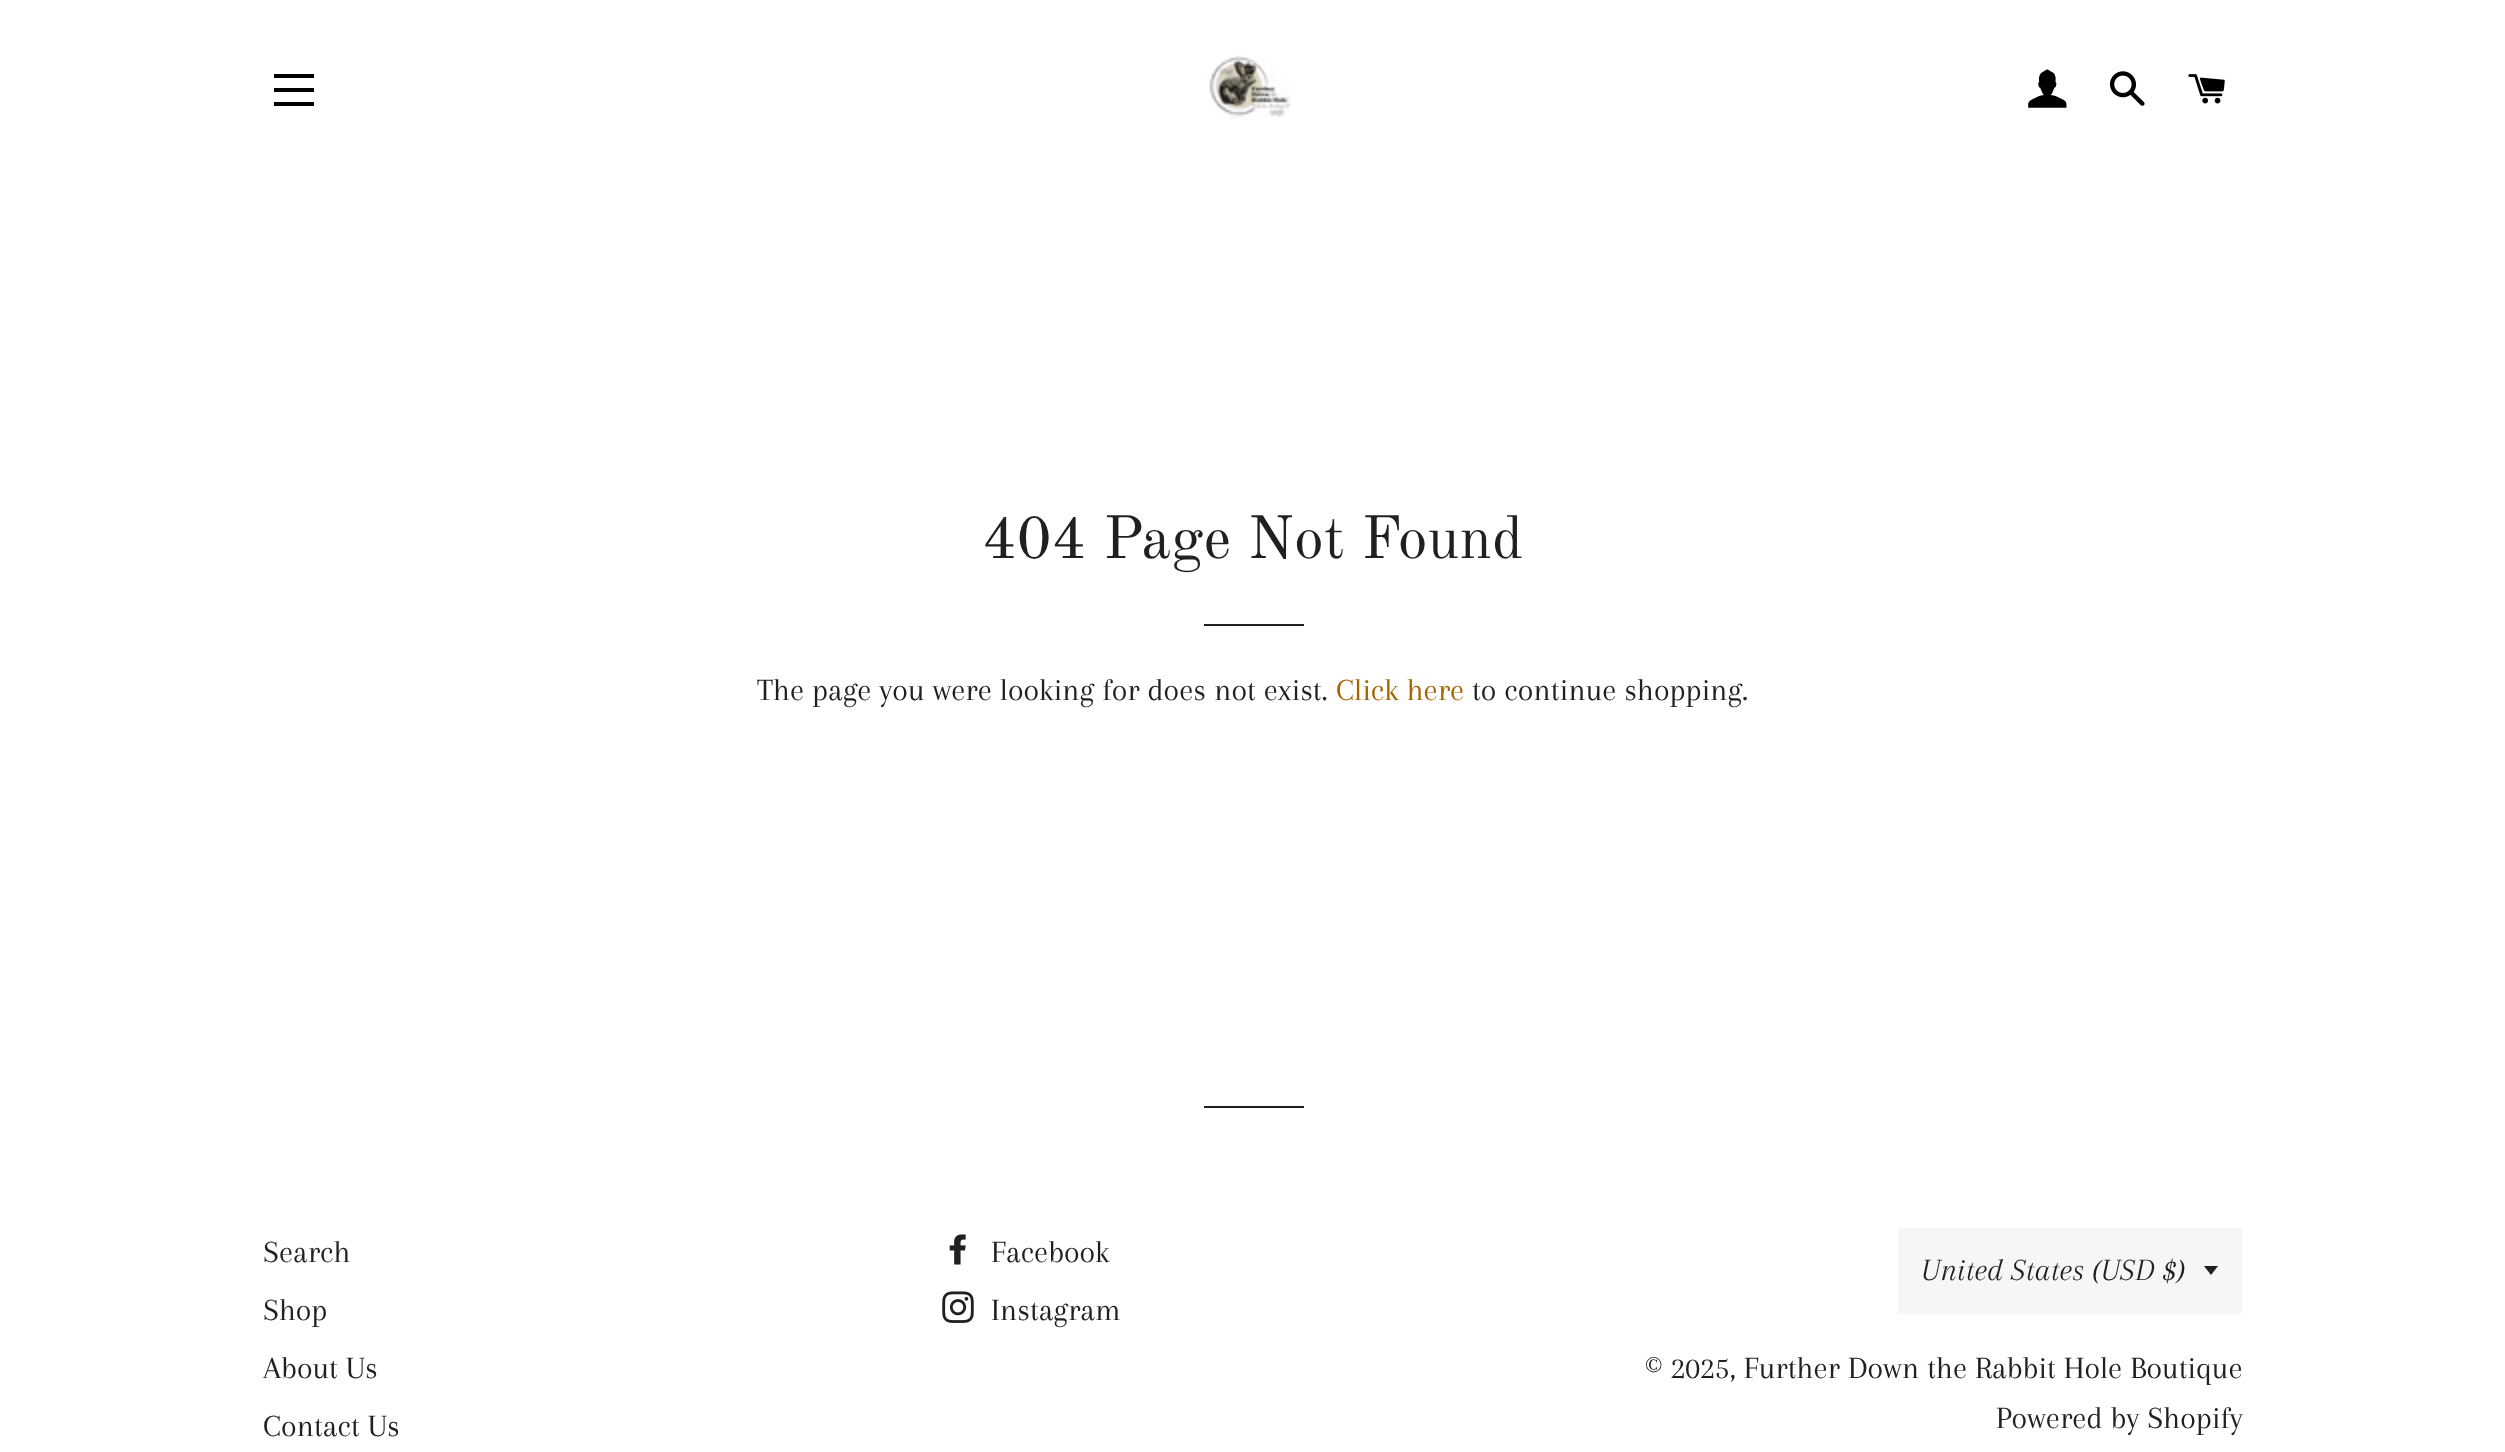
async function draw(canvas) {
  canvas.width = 2505
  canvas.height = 1452
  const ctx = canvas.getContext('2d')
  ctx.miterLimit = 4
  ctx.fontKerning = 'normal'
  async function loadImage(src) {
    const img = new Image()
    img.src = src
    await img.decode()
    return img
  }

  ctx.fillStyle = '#fff'
  ctx.fillRect(0, 0, 2505, 1452)
  ctx.fillStyle = '#000'
  ctx.fillRect(274, 74, 40, 4)
  ctx.fillRect(274, 88, 40, 4)
  ctx.fillRect(274, 102, 40, 4)
  ctx.drawImage(await loadImage('image0.png'), 1209, 55, 82, 64)
  ctx.drawImage(await loadImage('image1.png'), 2028, 69, 39, 39)
  ctx.drawImage(await loadImage('image2.png'), 2109, 71, 36, 35)
  ctx.drawImage(await loadImage('image3.png'), 2188, 74, 37, 30)
  ctx.font = '60px Old Standard TT'
  ctx.fillStyle = '#1f2021'
  ctx.fillText('404 Page Not Found', 982, 558)
  ctx.fillRect(1204, 624, 100, 2)
  ctx.font = '32px Arapey'
  ctx.fillText('The page you were looking for does not exist.', 757, 700)
  ctx.fillStyle = '#a56600'
  ctx.fillText('Click here', 1336, 700)
  ctx.fillStyle = '#1f2021'
  ctx.fillText('to continue shopping.', 1472, 700)
  ctx.fillRect(1204, 1106, 100, 2)
  ctx.fillText('Search', 263, 1262)
  ctx.fillText('Shop', 263, 1320)
  ctx.fillText('About Us', 263, 1378)
  ctx.fillText('Contact Us', 263, 1436)
  ctx.drawImage(await loadImage('image4.png'), 949, 1234, 17, 31)
  ctx.fillText('Facebook', 991, 1262)
  ctx.drawImage(await loadImage('image5.png'), 942, 1291, 32, 32)
  ctx.fillText('Instagram', 991, 1320)
  ctx.fillStyle = '#f6f6f6'
  ctx.fillRect(1898, 1228, 344, 86)
  ctx.fillStyle = '#1f2021'
  ctx.beginPath()
  ctx.moveTo(2204, 1266)
  ctx.lineTo(2211, 1275)
  ctx.lineTo(2218, 1266)
  ctx.closePath()
  ctx.fill()
  ctx.font = 'italic 32px Arapey'
  ctx.fillText('United States (USD $)', 1921, 1280)
  ctx.font = '32px Arapey'
  ctx.fillText('© 2025, Further Down the Rabbit Hole Boutique', 1645, 1378)
  ctx.fillText('Powered by Shopify', 1996, 1428)
}

draw(document.querySelector('canvas'))
